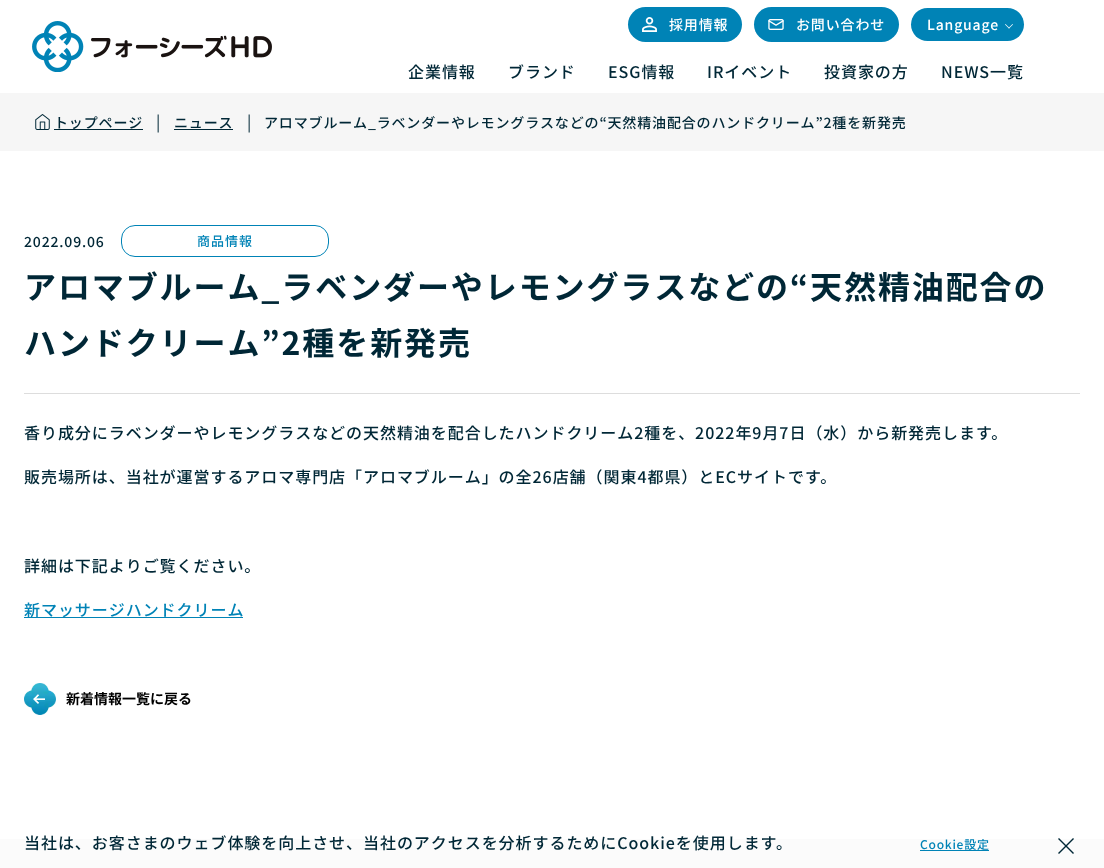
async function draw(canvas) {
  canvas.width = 1104
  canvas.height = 868
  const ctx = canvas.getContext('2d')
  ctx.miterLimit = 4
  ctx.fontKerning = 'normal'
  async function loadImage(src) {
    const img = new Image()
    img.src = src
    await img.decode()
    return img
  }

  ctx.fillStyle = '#fff'
  ctx.fillRect(0, 0, 1104, 868)
  ctx.drawImage(await loadImage('image0.png'), 32, 21, 240, 51)
  ctx.fillStyle = '#0083b6'
  ctx.beginPath()
  ctx.roundRect(628, 7, 114, 35, 17.5)
  ctx.fill()
  ctx.drawImage(await loadImage('image1.png'), 642, 17, 15, 15)
  ctx.letterSpacing = '0.85px'
  ctx.font = '500 14px Noto Sans JP'
  ctx.fillStyle = '#fff'
  ctx.fillText('採用情報', 669, 30)
  ctx.fillStyle = '#0083b6'
  ctx.beginPath()
  ctx.roundRect(754, 7, 145, 35, 17.5)
  ctx.fill()
  ctx.drawImage(await loadImage('image2.png'), 768, 19, 16, 11)
  ctx.fillStyle = '#fff'
  ctx.fillText('お問い合わせ', 796, 30)
  ctx.fillStyle = '#0083b6'
  ctx.beginPath()
  ctx.roundRect(911, 8, 113, 33, 16.5)
  ctx.fill()
  ctx.fillStyle = '#fff'
  ctx.fillText('Language', 927, 30)
  ctx.beginPath()
  ctx.moveTo(1013, 24.5)
  ctx.lineTo(1009, 28.5)
  ctx.lineTo(1008.5, 28)
  ctx.lineTo(1012.5, 24)
  ctx.closePath()
  ctx.fill()
  ctx.beginPath()
  ctx.moveTo(1009.5, 28)
  ctx.lineTo(1009, 28.5)
  ctx.lineTo(1005, 24.5)
  ctx.lineTo(1005.5, 24)
  ctx.closePath()
  ctx.fill()
  ctx.letterSpacing = '0.95px'
  ctx.font = '500 16px Noto Sans JP'
  ctx.fillStyle = '#002736'
  ctx.fillText('企業情報', 408, 78)
  ctx.fillText('ブランド', 508, 78)
  ctx.fillText('ESG情報', 608, 78)
  ctx.fillText('IRイベント', 707, 78)
  ctx.fillText('投資家の方', 824, 78)
  ctx.fillText('NEWS一覧', 941, 78)
  ctx.fillStyle = '#f6f6f6'
  ctx.fillRect(0, 93, 1104, 58)
  ctx.drawImage(await loadImage('image3.png'), 35, 114, 15, 16)
  ctx.fillStyle = '#002736'
  ctx.fillRect(54, 129, 89, 1)
  ctx.letterSpacing = '0.85px'
  ctx.font = '500 14px Noto Sans JP'
  ctx.fillText('トップページ', 54, 128)
  ctx.letterSpacing = '0px'
  ctx.font = '16px Noto Sans JP'
  ctx.fillText('|', 156, 128)
  ctx.letterSpacing = '0.85px'
  ctx.font = '500 14px Noto Sans JP'
  ctx.fillText('ニュース', 174, 128)
  ctx.fillRect(174, 129, 59, 1)
  ctx.letterSpacing = '0px'
  ctx.font = '16px Noto Sans JP'
  ctx.fillText('|', 247, 128)
  ctx.letterSpacing = '0.85px'
  ctx.font = '500 14px Noto Sans JP'
  ctx.fillText('アロマブルーム_ラベンダーやレモングラスなどの“天然精油配合のハンドクリーム”2種を新発売', 264, 128)
  ctx.fillText('2022.09.06', 24, 247)
  ctx.beginPath()
  ctx.roundRect(121.5, 225.5, 207, 31, 13.5)
  ctx.strokeStyle = '#0083b6'
  ctx.stroke()
  ctx.letterSpacing = '1px'
  ctx.font = '500 13px Noto Sans JP'
  ctx.fillStyle = '#0083b6'
  ctx.fillText('商品情報', 197, 246)
  ctx.fillStyle = '#ddd'
  ctx.fillRect(24, 393, 1056, 1)
  ctx.letterSpacing = '1.9px'
  ctx.font = 'bold 32px Noto Sans JP'
  ctx.fillStyle = '#002736'
  ctx.fillText('アロマブルーム_ラベンダーやレモングラスなどの“天然精油配合の', 24, 299)
  ctx.fillText('ハンドクリーム”2種を新発売', 24, 355)
  ctx.letterSpacing = '0.95px'
  ctx.font = '500 16px Noto Sans JP'
  ctx.fillText('香り成分にラベンダーやレモングラスなどの天然精油を配合したハンドクリーム2種を、2022年9月7日（水）から新発売します。', 24, 439)
  ctx.fillText('販売場所は、当社が運営するアロマ専門店「アロマブルーム」の全26店舗（関東4都県）とECサイトです。', 24, 483)
  ctx.fillText('詳細は下記よりご覧ください。', 24, 572)
  ctx.fillStyle = '#0083b6'
  ctx.fillRect(24, 617, 219, 1)
  ctx.fillText('新マッサージハンドクリーム', 24, 616)
  ctx.drawImage(await loadImage('image5.png'), 24, 683, 32, 32)
  ctx.drawImage(await loadImage('image4.png'), 33, 694, 12, 10)
  ctx.letterSpacing = '0px'
  ctx.font = 'bold 14px Noto Sans JP'
  ctx.fillStyle = '#000'
  ctx.fillText('新着情報一覧に戻る', 66, 704)
  ctx.fillStyle = '#fbfbfb'
  ctx.fillRect(0, 839, 1104, 29)
  ctx.letterSpacing = '0.95px'
  ctx.font = '500 16px Noto Sans JP'
  ctx.fillStyle = '#002736'
  ctx.fillText('当社は、お客さまのウェブ体験を向上させ、当社のアクセスを分析するためにCookieを使用します。', 24, 849)
  ctx.fillStyle = '#0083b6'
  ctx.fillRect(920, 850, 69, 1)
  ctx.letterSpacing = '0.75px'
  ctx.font = '500 12px Noto Sans JP'
  ctx.fillText('Cookie設定', 920, 849)
  ctx.drawImage(await loadImage('image6.png'), 1058, 838, 16, 16)
}

draw(document.querySelector('canvas'))
